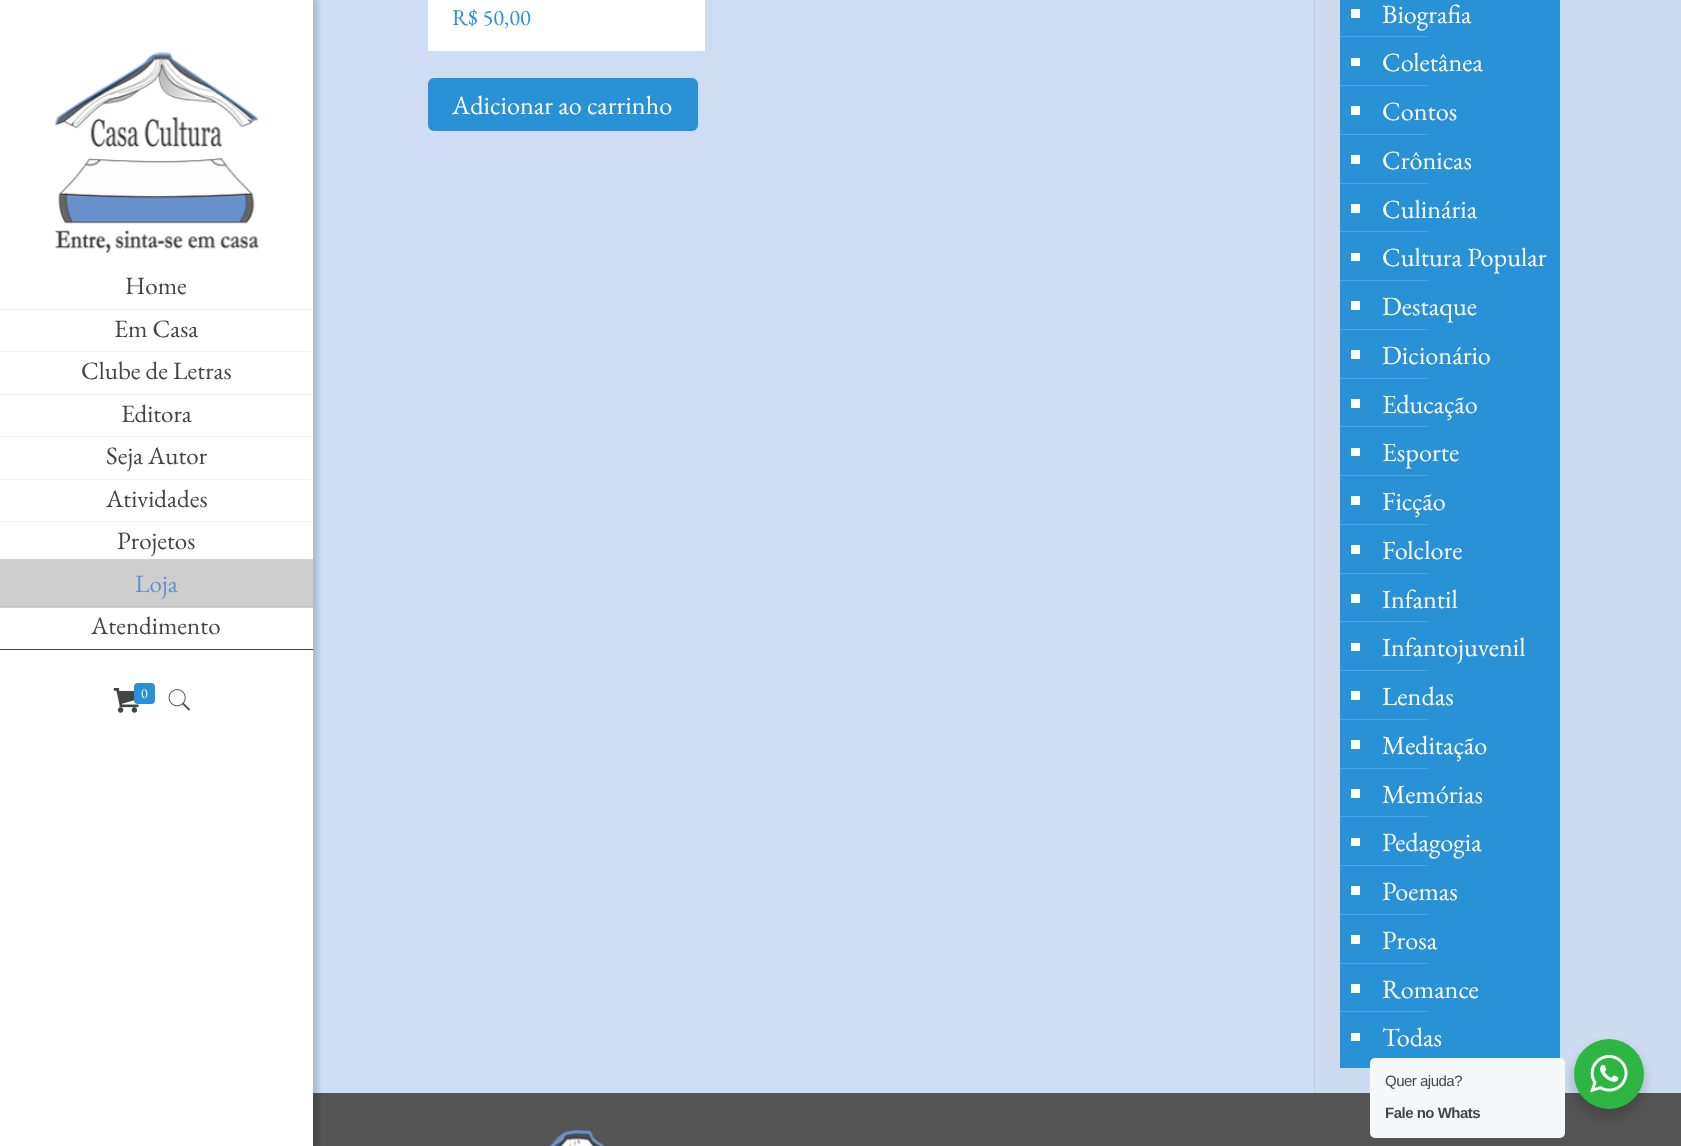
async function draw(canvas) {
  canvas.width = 1681
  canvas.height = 1146
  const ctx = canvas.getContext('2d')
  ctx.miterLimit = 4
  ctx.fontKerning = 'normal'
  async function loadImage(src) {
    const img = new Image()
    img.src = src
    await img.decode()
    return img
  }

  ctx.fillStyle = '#ceddf3'
  ctx.fillRect(0, 0, 1681, 1146)
  ctx.fillStyle = '#545454'
  ctx.fillRect(313, 1093, 1368, 53)
  ctx.fillStyle = '#00000026'
  ctx.filter = 'blur(2.5px)'
  ctx.beginPath()
  ctx.rect(0, -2, 318, 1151)
  ctx.fill()
  ctx.filter = 'none'
  ctx.fillStyle = '#fff'
  ctx.fillRect(0, 0, 313, 1146)
  ctx.drawImage(await loadImage('image0.png'), 54, 52, 205, 201)
  ctx.fillStyle = '#f2f2f2'
  ctx.fillRect(0, 309, 313, 1)
  ctx.font = '25px EB Garamond'
  ctx.fillStyle = '#444'
  ctx.fillText('Home', 125, 294)
  ctx.fillStyle = '#f2f2f2'
  ctx.fillRect(0, 351, 313, 1)
  ctx.fillStyle = '#444'
  ctx.fillText('Em Casa', 114, 337)
  ctx.fillStyle = '#f2f2f2'
  ctx.fillRect(0, 394, 313, 1)
  ctx.fillStyle = '#444'
  ctx.fillText('Clube de Letras', 81, 379)
  ctx.fillStyle = '#f2f2f2'
  ctx.fillRect(0, 436, 313, 1)
  ctx.fillStyle = '#444'
  ctx.fillText('Editora', 121, 422)
  ctx.fillStyle = '#f2f2f2'
  ctx.fillRect(0, 479, 313, 1)
  ctx.fillStyle = '#444'
  ctx.fillText('Seja Autor', 106, 464)
  ctx.fillStyle = '#f2f2f2'
  ctx.fillRect(0, 521, 313, 1)
  ctx.fillStyle = '#444'
  ctx.fillText('Atividades', 106, 507)
  ctx.fillText('Projetos', 117, 549)
  ctx.fillStyle = '#cecece'
  ctx.fillRect(0, 559, 313, 49)
  ctx.fillStyle = '#c4c4c4'
  ctx.fillRect(0, 606, 313, 1)
  ctx.fillStyle = '#6790ca'
  ctx.fillText('Loja', 135, 592)
  ctx.fillStyle = '#444'
  ctx.fillRect(0, 649, 313, 1)
  ctx.fillText('Atendimento', 91, 634)
  ctx.drawImage(await loadImage('image1.png'), 113, 688, 26, 25)
  ctx.fillStyle = '#2991d6'
  ctx.beginPath()
  ctx.roundRect(134, 683, 21, 21, 4)
  ctx.fill()
  ctx.font = '14px EB Garamond'
  ctx.fillStyle = '#fff'
  ctx.fillText('0', 141, 698)
  ctx.drawImage(await loadImage('image2.png'), 168, 689, 23, 22)
  ctx.fillRect(428, 0, 277, 51)
  ctx.font = '22.5px EB Garamond'
  ctx.fillStyle = '#2991d6'
  ctx.fillText('R$ 50,00', 452, 25)
  ctx.beginPath()
  ctx.roundRect(428, 78, 270, 53, 6)
  ctx.fill()
  ctx.font = '26.25px EB Garamond'
  ctx.fillStyle = '#fff'
  ctx.fillText('Adicionar ao carrinho', 452, 114)
  ctx.fillStyle = '#becbe0'
  ctx.fillRect(1314, 0, 1, 1093)
  ctx.fillStyle = '#cddbf0'
  ctx.fillRect(1315, 0, 366, 1093)
  ctx.fillStyle = '#2991d6'
  ctx.fillRect(1340, 0, 220, 1068)
  ctx.fillStyle = '#fff'
  ctx.fillRect(1351, 9, 9, 9)
  ctx.fillText('Biografia', 1382, 23)
  ctx.fillStyle = '#54a7de'
  ctx.fillRect(1340, 36, 88, 1)
  ctx.fillStyle = '#fff'
  ctx.fillRect(1351, 58, 9, 8)
  ctx.fillText('Coletânea', 1382, 71)
  ctx.fillStyle = '#54a7de'
  ctx.fillRect(1340, 85, 88, 1)
  ctx.fillStyle = '#fff'
  ctx.fillRect(1351, 106, 9, 9)
  ctx.fillText('Contos', 1382, 120)
  ctx.fillStyle = '#54a7de'
  ctx.fillRect(1340, 134, 88, 1)
  ctx.fillStyle = '#fff'
  ctx.fillRect(1351, 155, 9, 9)
  ctx.fillText('Crônicas', 1382, 169)
  ctx.fillStyle = '#54a7de'
  ctx.fillRect(1340, 183, 88, 1)
  ctx.fillStyle = '#fff'
  ctx.fillRect(1351, 204, 9, 9)
  ctx.fillText('Culinária', 1382, 218)
  ctx.fillStyle = '#54a7de'
  ctx.fillRect(1340, 231, 88, 1)
  ctx.fillStyle = '#fff'
  ctx.fillRect(1351, 253, 9, 8)
  ctx.fillText('Cultura Popular', 1382, 266)
  ctx.fillStyle = '#54a7de'
  ctx.fillRect(1340, 280, 88, 1)
  ctx.fillStyle = '#fff'
  ctx.fillRect(1351, 301, 9, 9)
  ctx.fillText('Destaque', 1382, 315)
  ctx.fillStyle = '#54a7de'
  ctx.fillRect(1340, 329, 88, 1)
  ctx.fillStyle = '#fff'
  ctx.fillRect(1351, 350, 9, 9)
  ctx.fillText('Dicionário', 1382, 364)
  ctx.fillStyle = '#54a7de'
  ctx.fillRect(1340, 378, 88, 1)
  ctx.fillStyle = '#fff'
  ctx.fillRect(1351, 399, 9, 9)
  ctx.fillText('Educação', 1382, 413)
  ctx.fillStyle = '#54a7de'
  ctx.fillRect(1340, 426, 88, 1)
  ctx.fillStyle = '#fff'
  ctx.fillRect(1351, 448, 9, 8)
  ctx.fillText('Esporte', 1382, 461)
  ctx.fillStyle = '#54a7de'
  ctx.fillRect(1340, 475, 88, 1)
  ctx.fillStyle = '#fff'
  ctx.fillRect(1351, 496, 9, 9)
  ctx.fillText('Ficção', 1382, 510)
  ctx.fillStyle = '#54a7de'
  ctx.fillRect(1340, 524, 88, 1)
  ctx.fillStyle = '#fff'
  ctx.fillRect(1351, 545, 9, 9)
  ctx.fillText('Folclore', 1382, 559)
  ctx.fillStyle = '#54a7de'
  ctx.fillRect(1340, 573, 88, 1)
  ctx.fillStyle = '#fff'
  ctx.fillRect(1351, 594, 9, 9)
  ctx.fillText('Infantil', 1382, 608)
  ctx.fillStyle = '#54a7de'
  ctx.fillRect(1340, 621, 88, 1)
  ctx.fillStyle = '#fff'
  ctx.fillRect(1351, 643, 9, 8)
  ctx.fillText('Infantojuvenil', 1382, 656)
  ctx.fillStyle = '#54a7de'
  ctx.fillRect(1340, 670, 88, 1)
  ctx.fillStyle = '#fff'
  ctx.fillRect(1351, 691, 9, 9)
  ctx.fillText('Lendas', 1382, 705)
  ctx.fillStyle = '#54a7de'
  ctx.fillRect(1340, 719, 88, 1)
  ctx.fillStyle = '#fff'
  ctx.fillRect(1351, 740, 9, 9)
  ctx.fillText('Meditação', 1382, 754)
  ctx.fillStyle = '#54a7de'
  ctx.fillRect(1340, 768, 88, 1)
  ctx.fillStyle = '#fff'
  ctx.fillRect(1351, 789, 9, 9)
  ctx.fillText('Memórias', 1382, 803)
  ctx.fillStyle = '#54a7de'
  ctx.fillRect(1340, 816, 88, 1)
  ctx.fillStyle = '#fff'
  ctx.fillRect(1351, 838, 9, 8)
  ctx.fillText('Pedagogia', 1382, 851)
  ctx.fillStyle = '#54a7de'
  ctx.fillRect(1340, 865, 88, 1)
  ctx.fillStyle = '#fff'
  ctx.fillRect(1351, 886, 9, 9)
  ctx.fillText('Poemas', 1382, 900)
  ctx.fillStyle = '#54a7de'
  ctx.fillRect(1340, 914, 88, 1)
  ctx.fillStyle = '#fff'
  ctx.fillRect(1351, 935, 9, 9)
  ctx.fillText('Prosa', 1382, 949)
  ctx.fillStyle = '#54a7de'
  ctx.fillRect(1340, 963, 88, 1)
  ctx.fillStyle = '#fff'
  ctx.fillRect(1351, 984, 9, 9)
  ctx.fillText('Romance', 1382, 998)
  ctx.fillStyle = '#54a7de'
  ctx.fillRect(1340, 1011, 88, 1)
  ctx.fillStyle = '#fff'
  ctx.fillRect(1351, 1033, 9, 8)
  ctx.fillText('Todas', 1382, 1046)
  ctx.drawImage(await loadImage('image3.png'), 548, 1130, 58, 16)
  ctx.fillStyle = '#00000024'
  ctx.filter = 'blur(5px)'
  ctx.beginPath()
  ctx.roundRect(1571, 1044, 75, 75, 37.5)
  ctx.fill()
  ctx.filter = 'none'
  ctx.fillStyle = '#f5f7f9'
  ctx.beginPath()
  ctx.roundRect(1370, 1058, 195, 80, 5)
  ctx.fill()
  ctx.letterSpacing = '-0.5px'
  ctx.font = '15px Liberation Sans'
  ctx.fillStyle = '#43474e'
  ctx.fillText('Quer ajuda?', 1385, 1086)
  ctx.font = 'bold 15px Liberation Sans'
  ctx.fillText('Fale no Whats', 1385, 1118)
  ctx.fillStyle = '#2db742'
  ctx.beginPath()
  ctx.arc(1609, 1074, 35, 0, 2 * Math.PI)
  ctx.fill()
  ctx.drawImage(await loadImage('image4.png'), 1590, 1055, 38, 38)
}

draw(document.querySelector('canvas'))
